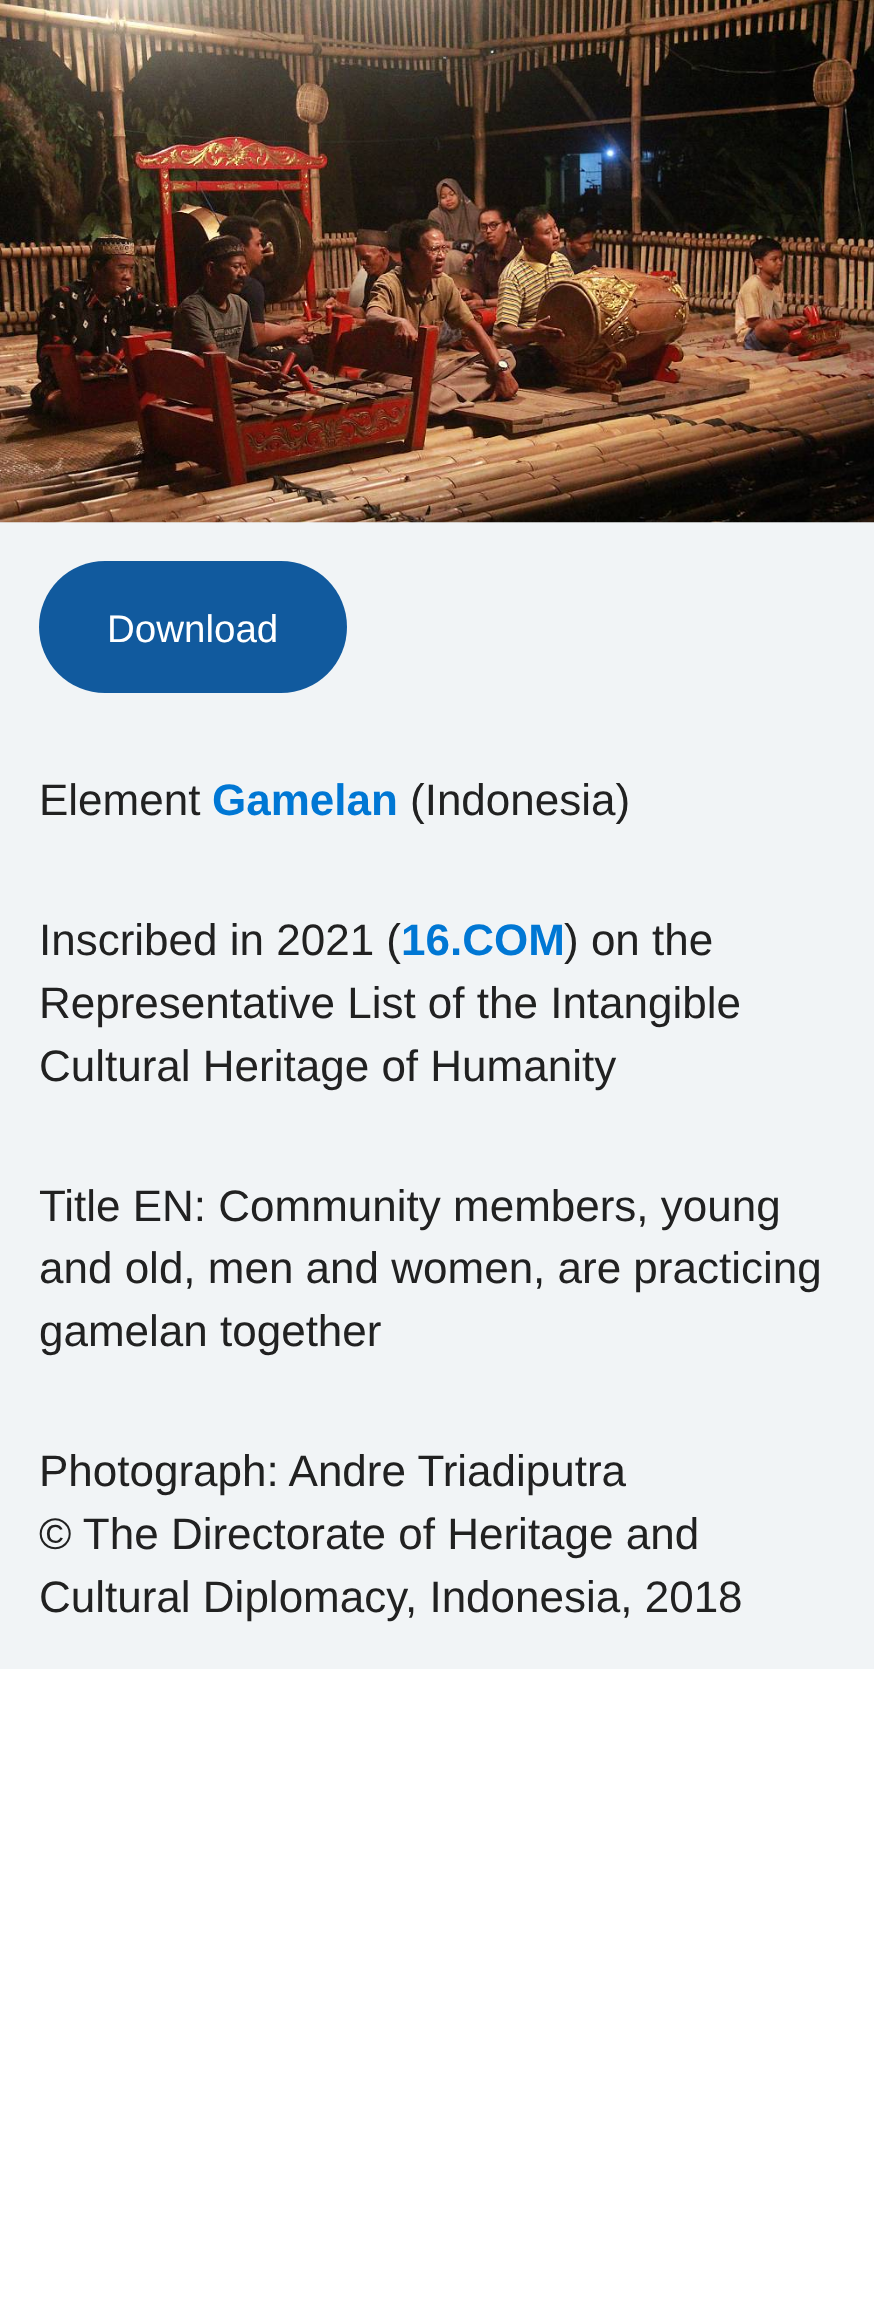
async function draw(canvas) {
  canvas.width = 874
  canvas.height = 2308
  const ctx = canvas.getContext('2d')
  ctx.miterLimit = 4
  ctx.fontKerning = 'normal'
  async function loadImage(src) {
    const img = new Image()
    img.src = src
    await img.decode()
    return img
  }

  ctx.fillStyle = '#fff'
  ctx.fillRect(0, 0, 874, 2308)
  ctx.fillStyle = '#f1f4f6'
  ctx.fillRect(0, 522, 874, 1147)
  ctx.drawImage(await loadImage('image0.png'), 0, 0, 874, 523)
  ctx.fillStyle = '#115a9e'
  ctx.beginPath()
  ctx.roundRect(39, 561, 308, 132, 66)
  ctx.fill()
  ctx.font = '38.5px Liberation Sans'
  ctx.fillStyle = '#fff'
  ctx.fillText('Download', 107, 642)
  ctx.font = '44px Liberation Sans'
  ctx.fillStyle = '#212121'
  ctx.fillText('Element', 39, 815)
  ctx.font = 'bold 44px Liberation Sans'
  ctx.fillStyle = '#0077d4'
  ctx.fillText('Gamelan', 212, 815)
  ctx.font = '44px Liberation Sans'
  ctx.fillStyle = '#212121'
  ctx.fillText('(Indonesia)', 410, 815)
  ctx.fillText('Inscribed in 2021 (', 39, 955)
  ctx.font = 'bold 44px Liberation Sans'
  ctx.fillStyle = '#0077d4'
  ctx.fillText('16.COM', 401, 955)
  ctx.font = '44px Liberation Sans'
  ctx.fillStyle = '#212121'
  ctx.fillText(') on the', 564, 955)
  ctx.fillText('Representative List of the Intangible', 39, 1018)
  ctx.fillText('Cultural Heritage of Humanity', 39, 1081)
  ctx.fillText('Title EN: Community members, young', 39, 1221)
  ctx.fillText('and old, men and women, are practicing', 39, 1283)
  ctx.fillText('gamelan together', 39, 1346)
  ctx.fillText('Photograph: Andre Triadiputra', 39, 1486)
  ctx.fillText('© The Directorate of Heritage and', 39, 1549)
  ctx.fillText('Cultural Diplomacy, Indonesia, 2018', 39, 1612)
}

draw(document.querySelector('canvas'))
